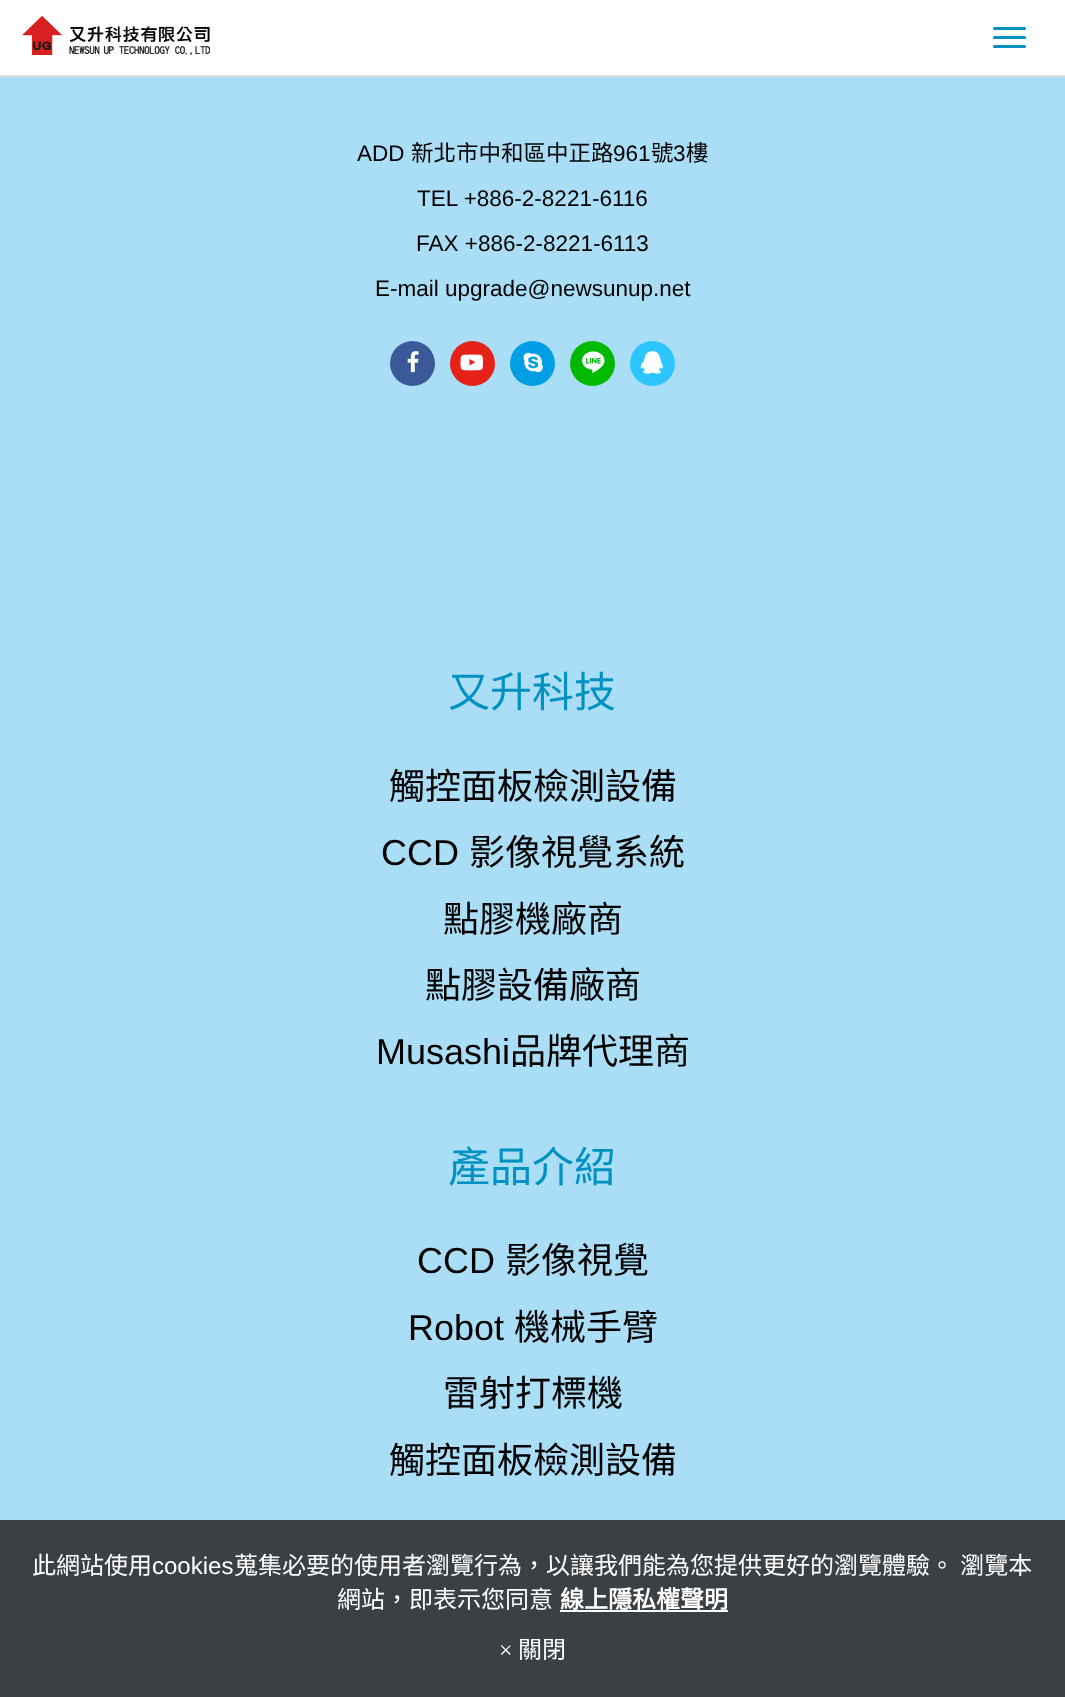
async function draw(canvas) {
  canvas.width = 1065
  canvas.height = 1697
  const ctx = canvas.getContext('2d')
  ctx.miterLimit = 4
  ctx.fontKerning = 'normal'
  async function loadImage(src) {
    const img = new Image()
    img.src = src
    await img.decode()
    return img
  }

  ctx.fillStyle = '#aadef6'
  ctx.fillRect(0, 0, 1065, 1697)
  ctx.fillStyle = '#fff'
  ctx.fillRect(0, 0, 1065, 75)
  ctx.fillStyle = '#ddd'
  ctx.fillRect(0, 75, 1065, 2)
  ctx.drawImage(await loadImage('image0.png'), 22, 16, 188, 39)
  ctx.fillStyle = '#0292c1'
  ctx.beginPath()
  ctx.roundRect(993, 27, 33, 3, 1.5)
  ctx.fill()
  ctx.beginPath()
  ctx.roundRect(993, 36, 33, 3, 1.5)
  ctx.fill()
  ctx.beginPath()
  ctx.roundRect(993, 45, 33, 3, 1.5)
  ctx.fill()
  ctx.font = '22.5px Liberation Sans'
  ctx.fillStyle = '#000'
  ctx.fillText('ADD', 357, 161)
  ctx.font = '22.5px Noto Sans CJK TC'
  ctx.fillText('新北市中和區中正路', 411, 161)
  ctx.font = '22.5px Liberation Sans'
  ctx.fillText('961', 613, 161)
  ctx.font = '22.5px Noto Sans CJK TC'
  ctx.fillText('號', 651, 161)
  ctx.font = '22.5px Liberation Sans'
  ctx.fillText('3', 673, 161)
  ctx.font = '22.5px Noto Sans CJK TC'
  ctx.fillText('樓', 686, 161)
  ctx.font = '22.5px Liberation Sans'
  ctx.fillText('TEL +886-2-8221-6116', 417, 206)
  ctx.fillText('FAX +886-2-8221-6113', 416, 251)
  ctx.fillText('E-mail upgrade@newsunup.net', 375, 296)
  ctx.fillStyle = '#3b5998'
  ctx.beginPath()
  ctx.arc(412.5, 363.5, 22.5, 0, 2 * Math.PI)
  ctx.fill()
  ctx.drawImage(await loadImage('image1.png'), 407, 351, 12, 22)
  ctx.fillStyle = '#e62117'
  ctx.beginPath()
  ctx.arc(472.5, 363.5, 22.5, 0, 2 * Math.PI)
  ctx.fill()
  ctx.drawImage(await loadImage('image2.png'), 460, 354, 23, 17)
  ctx.fillStyle = '#009ee5'
  ctx.beginPath()
  ctx.arc(532.5, 363.5, 22.5, 0, 2 * Math.PI)
  ctx.fill()
  ctx.drawImage(await loadImage('image3.png'), 523, 352, 20, 21)
  ctx.fillStyle = '#00b900'
  ctx.beginPath()
  ctx.arc(592.5, 363.5, 22.5, 0, 2 * Math.PI)
  ctx.fill()
  ctx.drawImage(await loadImage('image4.png'), 582, 351, 23, 22)
  ctx.fillStyle = '#2dc5ff'
  ctx.beginPath()
  ctx.arc(652.5, 363.5, 22.5, 0, 2 * Math.PI)
  ctx.fill()
  ctx.drawImage(await loadImage('image5.png'), 640, 351, 23, 23)
  ctx.font = '42px Noto Sans CJK TC'
  ctx.fillStyle = '#0292c1'
  ctx.fillText('又升科技', 448, 707)
  ctx.font = '36px Noto Sans CJK TC'
  ctx.fillStyle = '#000'
  ctx.fillText('觸控面板檢測設備', 389, 799)
  ctx.font = '36px Liberation Sans'
  ctx.fillText('CCD', 381, 865)
  ctx.font = '36px Noto Sans CJK TC'
  ctx.fillText('影像視覺系統', 469, 865)
  ctx.fillText('點膠機廠商', 443, 932)
  ctx.fillText('點膠設備廠商', 425, 998)
  ctx.font = '36px Liberation Sans'
  ctx.fillText('Musashi', 376, 1064)
  ctx.font = '36px Noto Sans CJK TC'
  ctx.fillText('品牌代理商', 510, 1064)
  ctx.font = '42px Noto Sans CJK TC'
  ctx.fillStyle = '#0292c1'
  ctx.fillText('產品介紹', 448, 1182)
  ctx.font = '36px Liberation Sans'
  ctx.fillStyle = '#000'
  ctx.fillText('CCD', 417, 1273)
  ctx.font = '36px Noto Sans CJK TC'
  ctx.fillText('影像視覺', 505, 1273)
  ctx.font = '36px Liberation Sans'
  ctx.fillText('Robot', 408, 1340)
  ctx.font = '36px Noto Sans CJK TC'
  ctx.fillText('機械手臂', 514, 1340)
  ctx.fillText('雷射打標機', 443, 1406)
  ctx.fillText('觸控面板檢測設備', 389, 1473)
  ctx.fillStyle = '#3b4045'
  ctx.fillRect(0, 1520, 1065, 177)
  ctx.font = '24px Noto Sans CJK TC'
  ctx.fillStyle = '#fff'
  ctx.fillText('此網站使用', 32, 1574)
  ctx.font = '24px Liberation Sans'
  ctx.fillText('cookies', 152, 1574)
  ctx.wordSpacing = '1px'
  ctx.font = '24px Noto Sans CJK TC'
  ctx.fillText('蒐集必要的使用者瀏覽行為，以讓我們能為您提供更好的瀏覽體驗。 瀏覽本', 234, 1574)
  ctx.wordSpacing = '0px'
  ctx.fillText('網站，即表示您同意', 337, 1608)
  ctx.fillRect(560, 1610, 168, 2)
  ctx.font = 'bold 24px Noto Sans CJK TC'
  ctx.fillText('線上隱私權聲明', 560, 1608)
  ctx.font = '24px Liberation Serif'
  ctx.fillText('×', 499, 1658)
  ctx.font = '24px Noto Sans CJK TC'
  ctx.fillText('關閉', 518, 1658)
}

draw(document.querySelector('canvas'))
